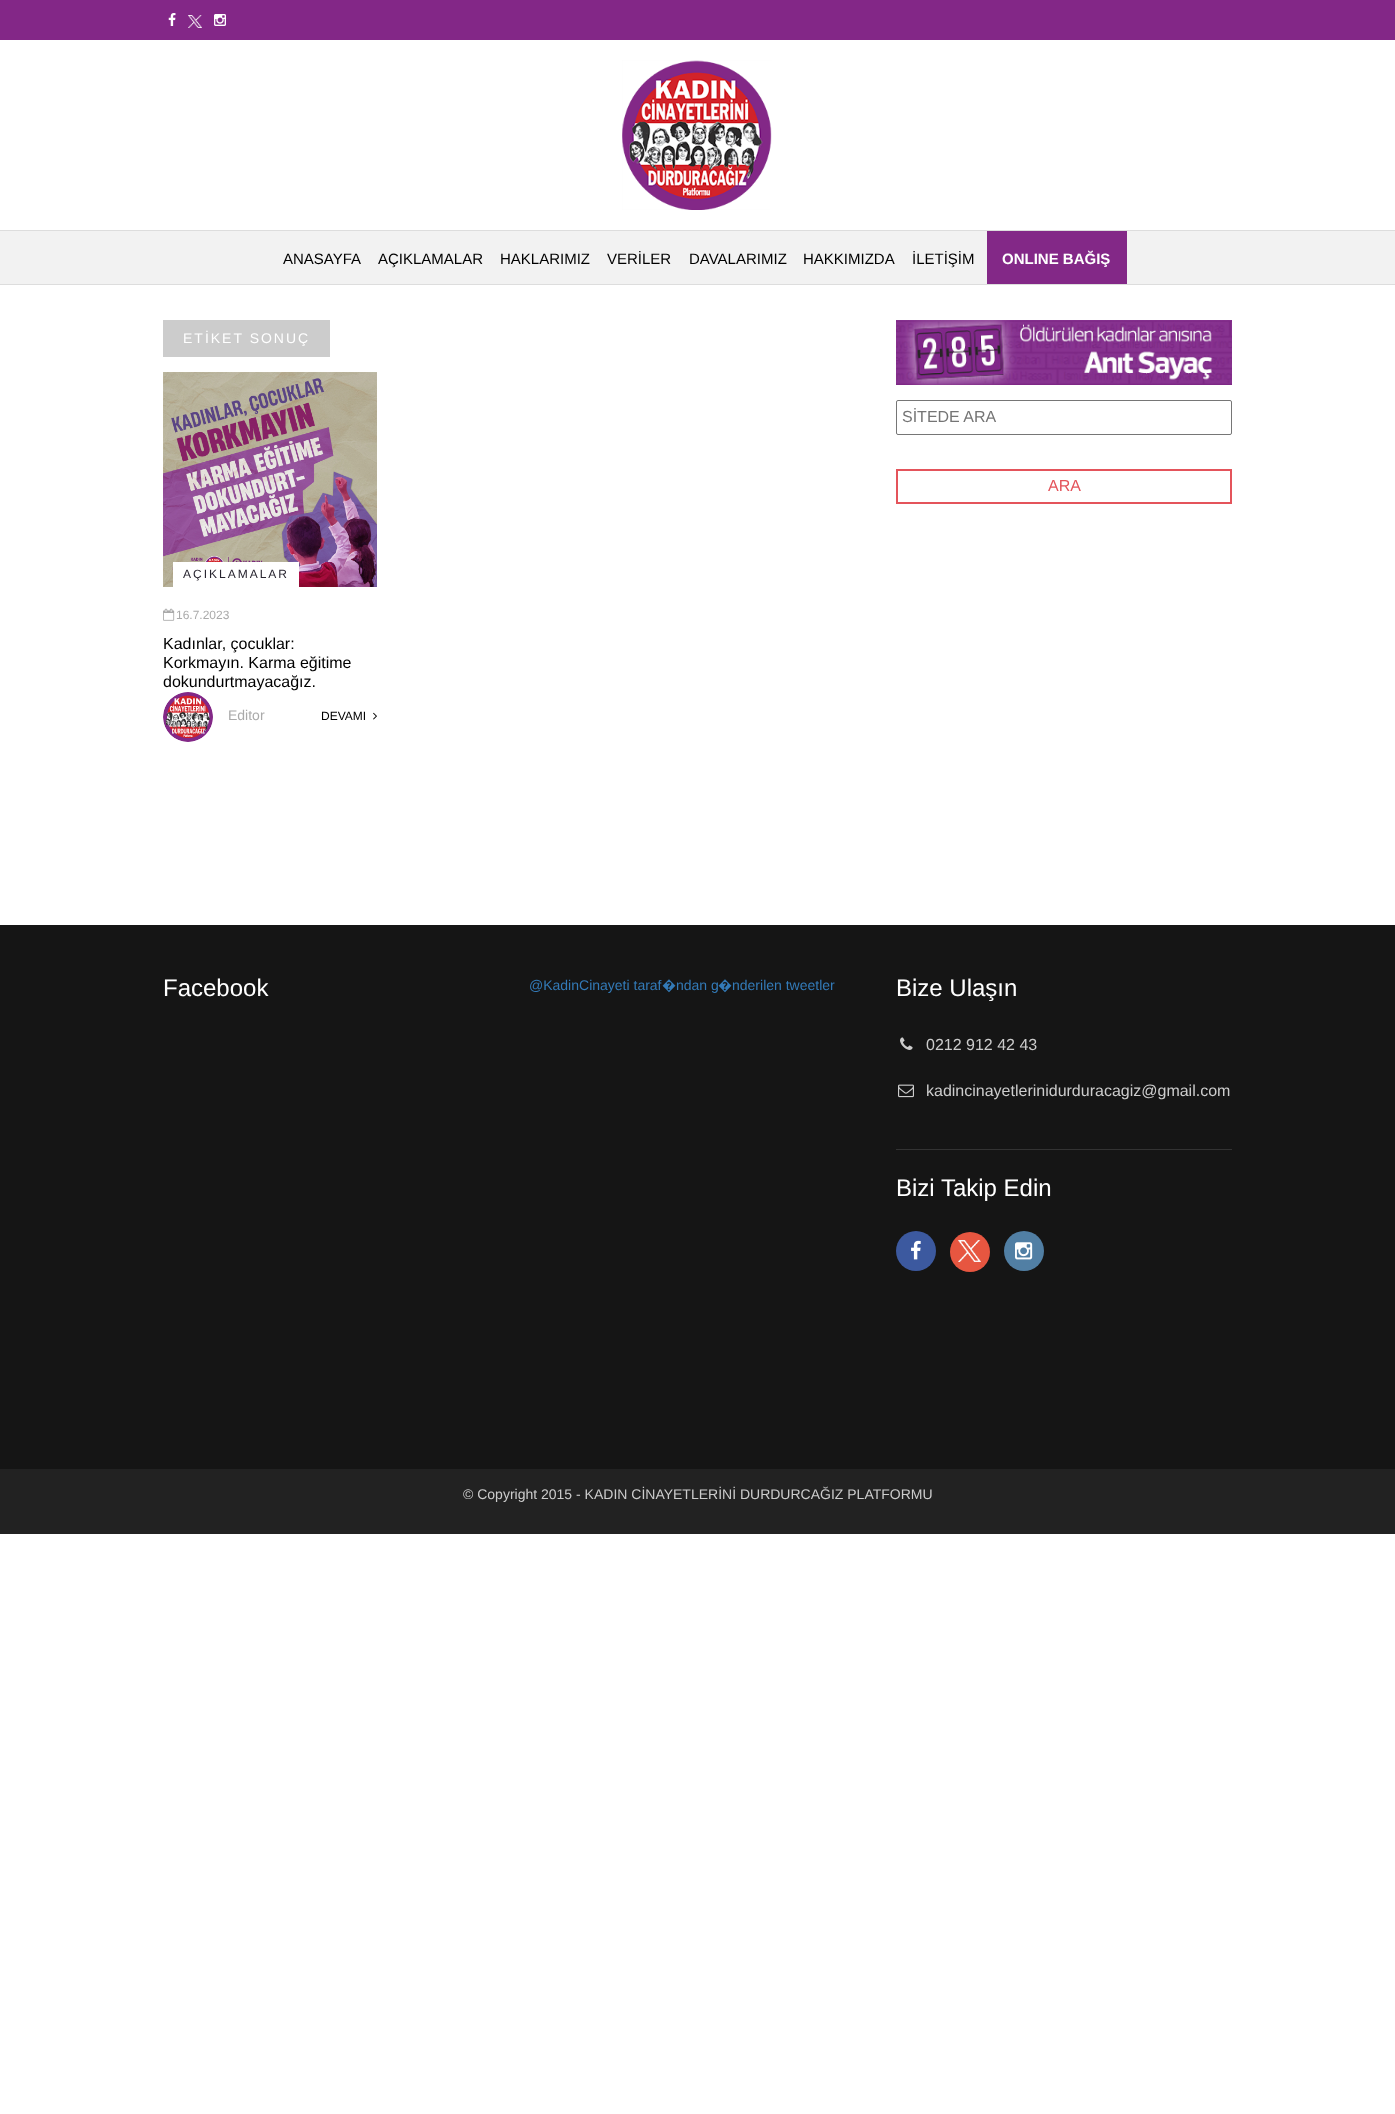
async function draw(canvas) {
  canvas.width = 1395
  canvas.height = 2114
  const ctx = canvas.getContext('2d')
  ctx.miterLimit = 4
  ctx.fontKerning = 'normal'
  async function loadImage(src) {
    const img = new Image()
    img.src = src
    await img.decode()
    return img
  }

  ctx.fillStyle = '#fff'
  ctx.fillRect(0, 0, 1395, 2114)
  ctx.fillStyle = '#832787'
  ctx.fillRect(0, 0, 1395, 40)
  ctx.drawImage(await loadImage('image0.png'), 168, 13, 8, 13)
  ctx.drawImage(await loadImage('image1.png'), 188, 15, 14, 13)
  ctx.drawImage(await loadImage('image2.png'), 214, 14, 12, 12)
  ctx.drawImage(await loadImage('image3.png'), 622, 60, 150, 150)
  ctx.fillStyle = '#f2f2f2'
  ctx.fillRect(0, 231, 1395, 53)
  ctx.fillStyle = '#ddd'
  ctx.fillRect(0, 230, 1395, 1)
  ctx.fillRect(0, 284, 1395, 1)
  ctx.font = '15px Liberation Sans'
  ctx.fillStyle = '#000'
  ctx.fillText('ANASAYFA', 283, 264)
  ctx.fillText('AÇIKLAMALAR', 378, 264)
  ctx.fillText('HAKLARIMIZ', 500, 264)
  ctx.fillText('VERİLER', 607, 264)
  ctx.fillText('DAVALARIMIZ', 689, 264)
  ctx.fillText('HAKKIMIZDA', 803, 264)
  ctx.fillText('İLETİŞİM', 912, 264)
  ctx.fillStyle = '#832887'
  ctx.fillRect(987, 231, 140, 53)
  ctx.font = 'bold 15px Liberation Sans'
  ctx.fillStyle = '#fff'
  ctx.fillText('ONLINE BAĞIŞ', 1002, 264)
  ctx.fillStyle = '#ccc'
  ctx.fillRect(163, 320, 167, 37)
  ctx.letterSpacing = '2px'
  ctx.font = '14px Liberation Sans'
  ctx.fillStyle = '#fff'
  ctx.fillText('ETİKET SONUÇ', 183, 343)
  ctx.drawImage(await loadImage('image4.png'), 163, 372, 214, 215)
  ctx.fillRect(173, 562, 126, 25)
  ctx.font = '12px Liberation Sans'
  ctx.fillStyle = '#27242f'
  ctx.fillText('AÇIKLAMALAR', 183, 578)
  ctx.drawImage(await loadImage('image5.png'), 163, 608, 12, 13)
  ctx.letterSpacing = '0px'
  ctx.fillStyle = '#aaa'
  ctx.fillText('16.7.2023', 176, 619)
  ctx.font = '16px Liberation Sans'
  ctx.fillStyle = '#000'
  ctx.fillText('Kadınlar, çocuklar:', 163, 649)
  ctx.fillText('Korkmayın. Karma eğitime', 163, 668)
  ctx.fillText('dokundurtmayacağız.', 163, 687)
  ctx.drawImage(await loadImage('image6.png'), 163, 692, 50, 50)
  ctx.font = '14px Liberation Sans'
  ctx.fillStyle = '#aaa'
  ctx.fillText('Editor', 228, 720)
  ctx.font = '12px Liberation Sans'
  ctx.fillStyle = '#000'
  ctx.fillText('DEVAMI', 321, 720)
  ctx.drawImage(await loadImage('image7.png'), 373, 712, 4, 8)
  ctx.drawImage(await loadImage('image8.png'), 896, 320, 336, 65)
  ctx.beginPath()
  ctx.roundRect(896.5, 400.5, 335, 34, 1.5)
  ctx.strokeStyle = '#767676'
  ctx.stroke()
  ctx.font = '16px Liberation Sans'
  ctx.fillStyle = '#757575'
  ctx.fillText('SİTEDE ARA', 902, 422)
  ctx.strokeStyle = '#e4545b'
  ctx.lineWidth = 2
  ctx.strokeRect(897, 470, 334, 33)
  ctx.fillStyle = '#e4545b'
  ctx.fillText('ARA', 1048, 491)
  ctx.fillStyle = '#151515'
  ctx.fillRect(0, 925, 1395, 544)
  ctx.font = '24px Liberation Sans'
  ctx.fillStyle = '#fff'
  ctx.fillText('Facebook', 163, 996)
  ctx.font = '14px Liberation Sans'
  ctx.fillStyle = '#337ab7'
  ctx.fillText('@KadinCinayeti taraf', 529, 990)
  ctx.font = '14px Noto Sans'
  ctx.fillText('�', 662, 990)
  ctx.font = '14px Liberation Sans'
  ctx.fillText('ndan g', 676, 990)
  ctx.font = '14px Noto Sans'
  ctx.fillText('�', 718, 990)
  ctx.font = '14px Liberation Sans'
  ctx.fillText('nderilen tweetler', 732, 990)
  ctx.font = '24px Liberation Sans'
  ctx.fillStyle = '#fff'
  ctx.fillText('Bize Ulaşın', 896, 996)
  ctx.fillStyle = '#333'
  ctx.fillRect(896, 1149, 336, 1)
  ctx.drawImage(await loadImage('image9.png'), 900, 1037, 13, 13)
  ctx.font = '16px Liberation Sans'
  ctx.fillStyle = '#ccc'
  ctx.fillText('0212 912 42 43', 926, 1050)
  ctx.drawImage(await loadImage('image10.png'), 898, 1084, 16, 14)
  ctx.fillText('kadincinayetlerinidurduracagiz@gmail.com', 926, 1096)
  ctx.font = '24px Liberation Sans'
  ctx.fillStyle = '#fff'
  ctx.fillText('Bizi Takip Edin', 896, 1196)
  ctx.fillStyle = '#3c599f'
  ctx.beginPath()
  ctx.arc(916, 1251, 20, 0, 2 * Math.PI)
  ctx.fill()
  ctx.drawImage(await loadImage('image11.png'), 911, 1240, 10, 20)
  ctx.fillStyle = '#e75640'
  ctx.beginPath()
  ctx.arc(970, 1252, 20, 0, 2 * Math.PI)
  ctx.fill()
  ctx.drawImage(await loadImage('image12.png'), 958, 1240, 23, 22)
  ctx.fillStyle = '#517fa4'
  ctx.beginPath()
  ctx.arc(1024, 1251, 20, 0, 2 * Math.PI)
  ctx.fill()
  ctx.drawImage(await loadImage('image13.png'), 1015, 1242, 18, 18)
  ctx.fillStyle = '#222'
  ctx.fillRect(0, 1469, 1395, 65)
  ctx.font = '14px Liberation Sans'
  ctx.fillStyle = '#ccc'
  ctx.fillText('© Copyright 2015 - KADIN CİNAYETLERİNİ DURDURCAĞIZ PLATFORMU', 463, 1499)
}

draw(document.querySelector('canvas'))
